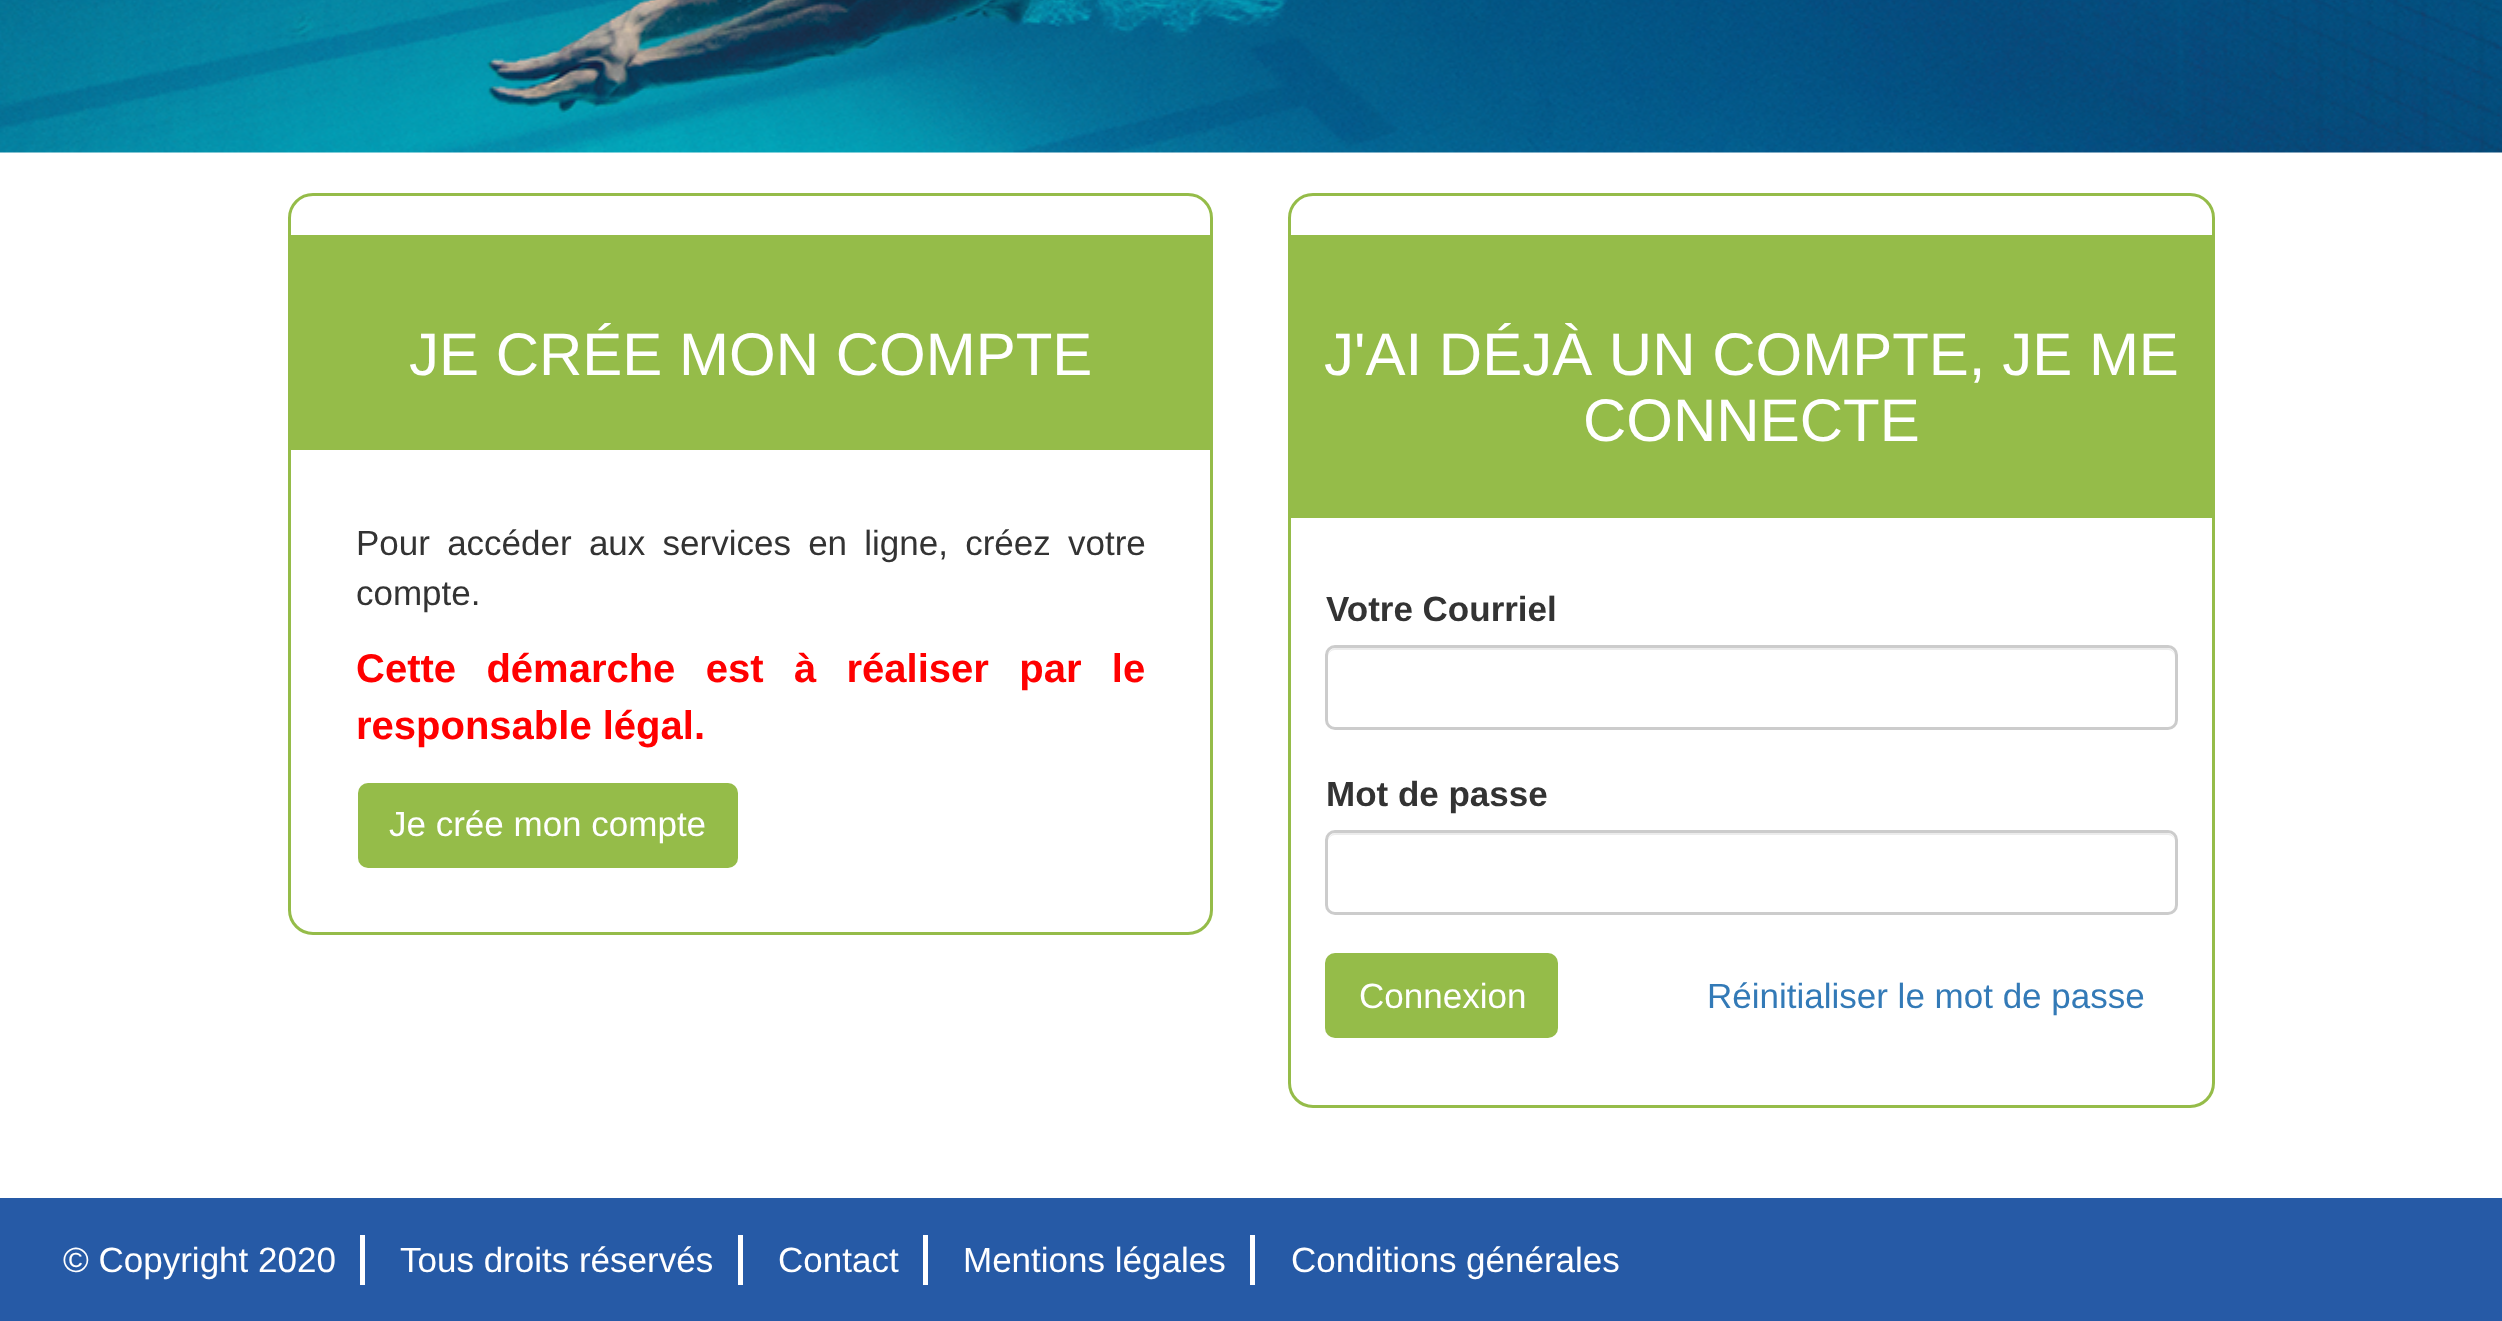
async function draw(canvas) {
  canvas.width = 2502
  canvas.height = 1321
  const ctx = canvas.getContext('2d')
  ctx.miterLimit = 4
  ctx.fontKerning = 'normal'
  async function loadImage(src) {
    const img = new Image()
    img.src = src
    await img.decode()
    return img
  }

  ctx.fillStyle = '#fff'
  ctx.fillRect(0, 0, 2502, 1321)
  ctx.drawImage(await loadImage('image0.png'), 0, 0, 2502, 153)
  ctx.beginPath()
  ctx.roundRect(289.5, 194.5, 922, 739, 23.5)
  ctx.strokeStyle = '#95bc49'
  ctx.lineWidth = 3
  ctx.stroke()
  ctx.fillStyle = '#95bc49'
  ctx.fillRect(291, 235, 919, 215)
  ctx.font = '60px Liberation Sans'
  ctx.fillStyle = '#fff'
  ctx.fillText('JE CRÉE MON COMPTE', 409, 375)
  ctx.wordSpacing = '7.5px'
  ctx.font = '35px Liberation Sans'
  ctx.fillStyle = '#333'
  ctx.fillText('Pour accéder aux services en ligne, créez votre', 356, 555)
  ctx.wordSpacing = '0px'
  ctx.fillText('compte.', 356, 605)
  ctx.wordSpacing = '19.25px'
  ctx.font = 'bold 40px Liberation Sans'
  ctx.fillStyle = '#f00'
  ctx.fillText('Cette démarche est à réaliser par le', 356, 682)
  ctx.wordSpacing = '0px'
  ctx.fillText('responsable légal.', 356, 739)
  ctx.fillStyle = '#95bc49'
  ctx.beginPath()
  ctx.roundRect(358, 783, 380, 85, 10)
  ctx.fill()
  ctx.font = '35px Liberation Sans'
  ctx.fillStyle = '#fff'
  ctx.fillText('Je crée mon compte', 389, 836)
  ctx.beginPath()
  ctx.roundRect(1289.5, 194.5, 924, 912, 23.5)
  ctx.stroke()
  ctx.fillStyle = '#95bc49'
  ctx.fillRect(1291, 235, 921, 283)
  ctx.font = '60px Liberation Sans'
  ctx.fillStyle = '#fff'
  ctx.fillText('J\'AI DÉJÀ UN COMPTE, JE ME', 1324, 375)
  ctx.fillText('CONNECTE', 1583, 441)
  ctx.font = 'bold 35px Liberation Sans'
  ctx.fillStyle = '#333'
  ctx.fillText('Votre Courriel', 1326, 621)
  ctx.fillStyle = '#ececec'
  ctx.beginPath()
  ctx.moveTo(1335, 650)
  ctx.lineTo(2168, 650)
  ctx.bezierCurveTo(2172, 650, 2175, 653, 2175, 658)
  ctx.lineTo(2175, 656)
  ctx.bezierCurveTo(2175, 652, 2171, 648, 2167, 648)
  ctx.lineTo(1336, 648)
  ctx.bezierCurveTo(1332, 648, 1328, 652, 1328, 656)
  ctx.lineTo(1328, 658)
  ctx.bezierCurveTo(1328, 653, 1331, 650, 1335, 650)
  ctx.closePath()
  ctx.fill()
  ctx.beginPath()
  ctx.roundRect(1326.5, 646.5, 850, 82, 8.5)
  ctx.strokeStyle = '#ccc'
  ctx.stroke()
  ctx.fillStyle = '#333'
  ctx.fillText('Mot de passe', 1326, 806)
  ctx.fillStyle = '#ececec'
  ctx.beginPath()
  ctx.moveTo(1335, 835)
  ctx.lineTo(2168, 835)
  ctx.bezierCurveTo(2172, 835, 2175, 838, 2175, 842)
  ctx.lineTo(2175, 841)
  ctx.bezierCurveTo(2175, 837, 2171, 833, 2167, 833)
  ctx.lineTo(1336, 833)
  ctx.bezierCurveTo(1332, 833, 1328, 837, 1328, 841)
  ctx.lineTo(1328, 842)
  ctx.bezierCurveTo(1328, 838, 1331, 835, 1335, 835)
  ctx.closePath()
  ctx.fill()
  ctx.beginPath()
  ctx.roundRect(1326.5, 831.5, 850, 82, 8.5)
  ctx.stroke()
  ctx.fillStyle = '#95bc49'
  ctx.beginPath()
  ctx.roundRect(1325, 953, 233, 85, 10)
  ctx.fill()
  ctx.font = '35px Liberation Sans'
  ctx.fillStyle = '#fff'
  ctx.fillText('Connexion', 1359, 1008)
  ctx.fillStyle = '#337ab7'
  ctx.fillText('Réinitialiser le mot de passe', 1707, 1008)
  ctx.fillStyle = '#265aa6'
  ctx.fillRect(0, 1198, 2502, 123)
  ctx.fillStyle = '#fff'
  ctx.fillRect(360, 1235, 5, 50)
  ctx.fillText('© Copyright 2020', 63, 1272)
  ctx.fillRect(738, 1235, 5, 50)
  ctx.fillText('Tous droits réservés', 400, 1272)
  ctx.fillRect(923, 1235, 5, 50)
  ctx.fillText('Contact', 778, 1272)
  ctx.fillRect(1250, 1235, 5, 50)
  ctx.fillText('Mentions légales', 963, 1272)
  ctx.fillText('Conditions générales', 1291, 1272)
}

draw(document.querySelector('canvas'))
